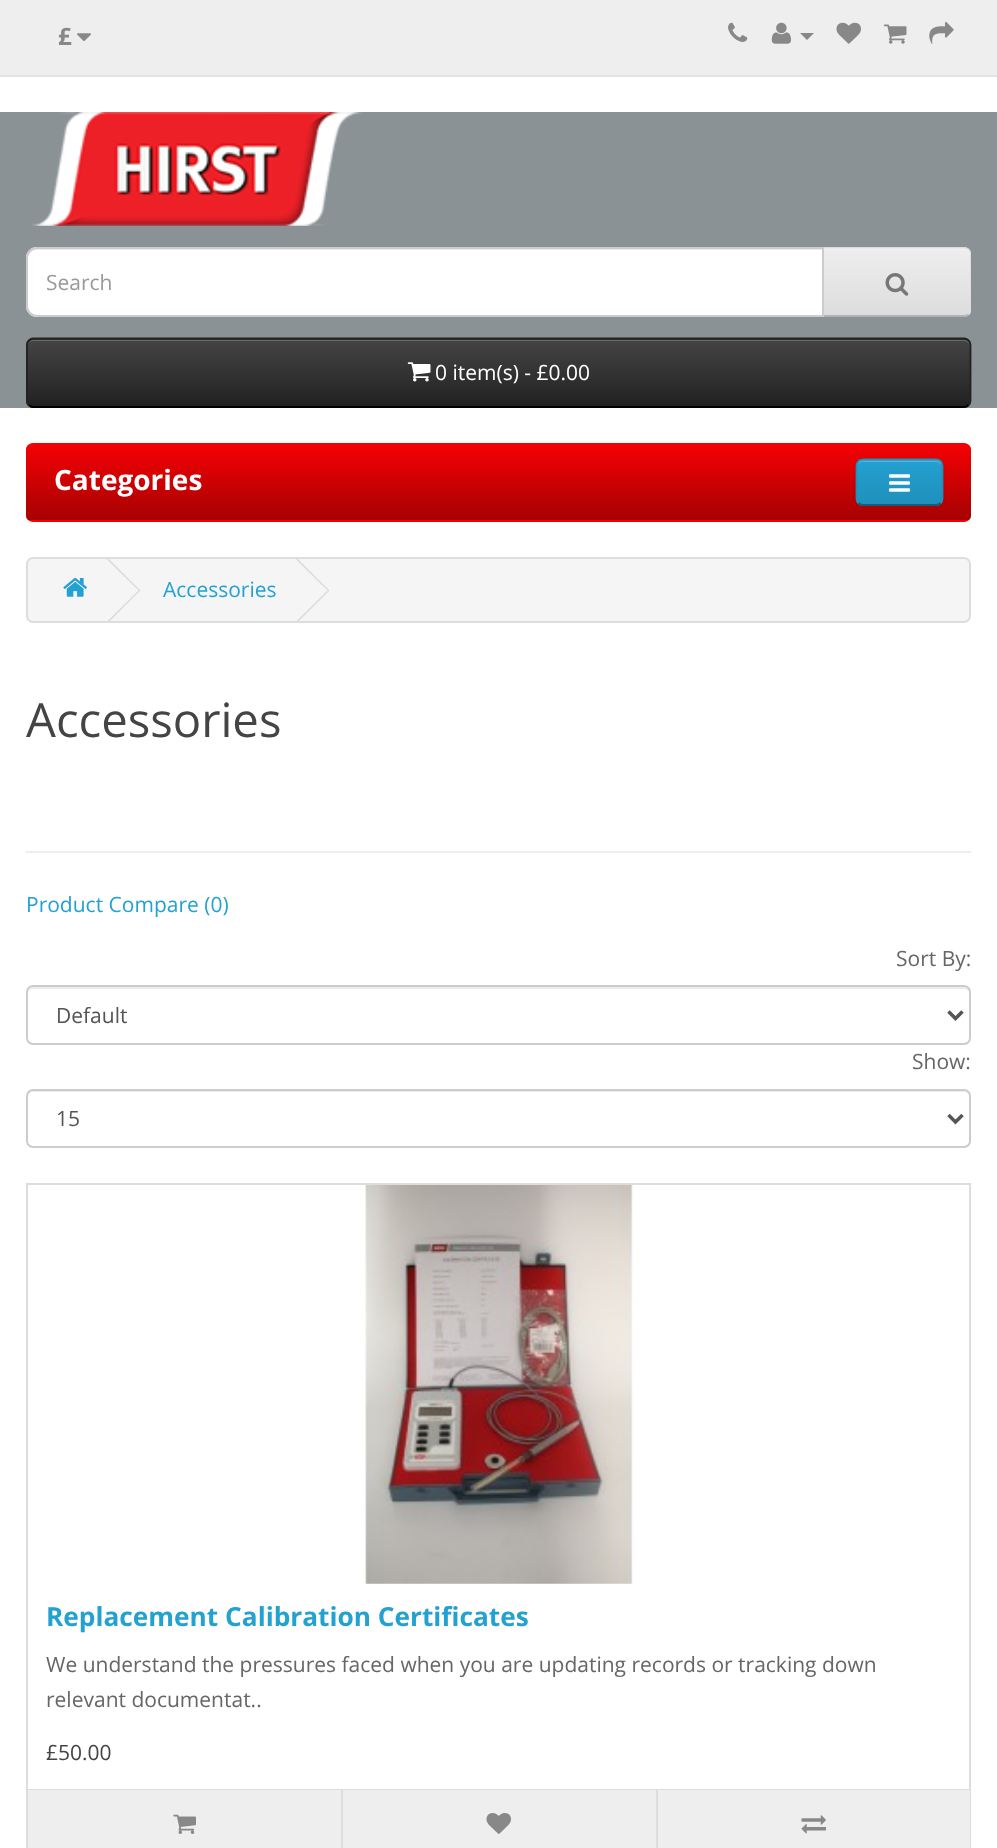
async function draw(canvas) {
  canvas.width = 997
  canvas.height = 1848
  const ctx = canvas.getContext('2d')
  ctx.miterLimit = 4
  ctx.fontKerning = 'normal'
  async function loadImage(src) {
    const img = new Image()
    img.src = src
    await img.decode()
    return img
  }
  let gradient

  ctx.fillStyle = '#fff'
  ctx.fillRect(0, 0, 997, 1848)
  ctx.fillStyle = '#eee'
  ctx.fillRect(0, 0, 997, 75)
  ctx.fillStyle = '#e2e2e2'
  ctx.fillRect(0, 75, 997, 2)
  ctx.font = 'bold 24px Open Sans'
  ctx.fillStyle = '#888'
  ctx.fillText('£', 58, 45)
  ctx.drawImage(await loadImage('image0.png'), 77, 33, 14, 8)
  ctx.drawImage(await loadImage('image1.png'), 728, 22, 20, 20)
  ctx.drawImage(await loadImage('image2.png'), 771, 22, 20, 22)
  ctx.beginPath()
  ctx.moveTo(800, 33)
  ctx.lineTo(814, 33)
  ctx.lineTo(807, 40)
  ctx.closePath()
  ctx.fill()
  ctx.drawImage(await loadImage('image3.png'), 836, 22, 25, 22)
  ctx.drawImage(await loadImage('image4.png'), 883, 24, 24, 20)
  ctx.drawImage(await loadImage('image5.png'), 929, 22, 25, 22)
  ctx.fillStyle = '#8a9296'
  ctx.fillRect(0, 112, 997, 296)
  ctx.drawImage(await loadImage('image6.png'), 31, 112, 332, 114)
  ctx.fillStyle = '#e7e7e7'
  ctx.beginPath()
  ctx.roundRect(823, 247, 148, 70, [0, 7, 7, 0])
  ctx.fill()
  ctx.save()
  ctx.beginPath()
  ctx.roundRect(823, 247, 148, 70, [0, 7, 7, 0])
  ctx.clip()
  gradient = ctx.createLinearGradient(897, 249, 897, 315)
  gradient.addColorStop(0, '#eee')
  gradient.addColorStop(1, '#ddd')
  ctx.fillStyle = gradient
  ctx.fillRect(824, 249, 147, 66)
  ctx.restore()
  ctx.fillStyle = '#f1f1f1'
  ctx.beginPath()
  ctx.moveTo(824, 250)
  ctx.lineTo(964, 250)
  ctx.bezierCurveTo(967, 250, 970, 253, 970, 256)
  ctx.lineTo(970, 254)
  ctx.bezierCurveTo(970, 251, 968, 249, 965, 249)
  ctx.lineTo(824, 249)
  ctx.closePath()
  ctx.fill()
  ctx.fillStyle = '#ddd'
  ctx.beginPath()
  ctx.moveTo(824, 248)
  ctx.lineTo(965, 248)
  ctx.lineTo(968, 250)
  ctx.lineTo(969, 249)
  ctx.bezierCurveTo(968, 248, 966, 247, 964, 247)
  ctx.lineTo(823, 247)
  ctx.closePath()
  ctx.fill()
  ctx.beginPath()
  ctx.moveTo(969, 249)
  ctx.bezierCurveTo(970, 250, 971, 252, 971, 254)
  ctx.lineTo(971, 310)
  ctx.bezierCurveTo(971, 312, 970, 314, 969, 315)
  ctx.lineTo(968, 314)
  ctx.bezierCurveTo(969, 313, 970, 312, 970, 310)
  ctx.lineTo(970, 254)
  ctx.bezierCurveTo(970, 252, 969, 251, 968, 250)
  ctx.closePath()
  ctx.fill()
  ctx.fillStyle = '#b3b3b3'
  ctx.beginPath()
  ctx.moveTo(969, 315)
  ctx.lineTo(966, 317)
  ctx.lineTo(822, 317)
  ctx.lineTo(824, 315)
  ctx.lineTo(964, 315)
  ctx.bezierCurveTo(966, 315, 967, 314, 968, 314)
  ctx.closePath()
  ctx.fill()
  ctx.fillStyle = '#fff'
  ctx.beginPath()
  ctx.roundRect(26, 247, 798, 70, [11, 0, 0, 11])
  ctx.fill()
  ctx.fillStyle = '#ececec'
  ctx.beginPath()
  ctx.moveTo(37, 250)
  ctx.lineTo(822, 250)
  ctx.lineTo(822, 315)
  ctx.lineTo(823, 315)
  ctx.lineTo(823, 249)
  ctx.lineTo(37, 249)
  ctx.bezierCurveTo(32, 249, 28, 253, 28, 258)
  ctx.lineTo(28, 259)
  ctx.bezierCurveTo(28, 254, 32, 250, 37, 250)
  ctx.closePath()
  ctx.fill()
  ctx.beginPath()
  ctx.roundRect(27, 248, 796, 68, [10, 0, 0, 10])
  ctx.strokeStyle = '#ccc'
  ctx.lineWidth = 2
  ctx.stroke()
  ctx.font = '21px Open Sans'
  ctx.fillStyle = '#999'
  ctx.fillText('Search', 46, 290)
  ctx.drawImage(await loadImage('image7.png'), 885, 273, 24, 23)
  ctx.fillStyle = '#363636'
  ctx.beginPath()
  ctx.roundRect(26, 338, 945, 70, 7)
  ctx.fill()
  ctx.save()
  ctx.beginPath()
  ctx.roundRect(26, 338, 945, 70, 7)
  ctx.clip()
  gradient = ctx.createLinearGradient(499, 339, 499, 406)
  gradient.addColorStop(0, '#444')
  gradient.addColorStop(1, '#222')
  ctx.fillStyle = gradient
  ctx.fillRect(26, 340, 945, 66)
  ctx.restore()
  ctx.fillStyle = '#696969'
  ctx.beginPath()
  ctx.moveTo(33, 341)
  ctx.lineTo(964, 341)
  ctx.bezierCurveTo(967, 341, 970, 344, 970, 346)
  ctx.bezierCurveTo(970, 343, 968, 340, 965, 340)
  ctx.lineTo(33, 340)
  ctx.bezierCurveTo(30, 340, 28, 343, 28, 346)
  ctx.bezierCurveTo(28, 344, 30, 341, 33, 341)
  ctx.closePath()
  ctx.fill()
  ctx.beginPath()
  ctx.moveTo(968.5, 405)
  ctx.bezierCurveTo(967.5, 406, 966, 407, 964, 407)
  ctx.lineTo(33, 407)
  ctx.bezierCurveTo(31.5, 407, 30, 406, 29, 405)
  ctx.strokeStyle = '#000'
  ctx.lineWidth = 1.8
  ctx.stroke()
  ctx.beginPath()
  ctx.moveTo(29, 405)
  ctx.bezierCurveTo(28, 404, 27, 402.5, 27, 401)
  ctx.lineTo(27, 345)
  ctx.bezierCurveTo(27, 343, 28, 341.5, 29, 340.5)
  ctx.bezierCurveTo(30, 339.5, 31.5, 338.5, 33, 338.5)
  ctx.lineTo(964, 338.5)
  ctx.bezierCurveTo(966, 338.5, 967.5, 339.5, 968.5, 340.5)
  ctx.bezierCurveTo(969.5, 341.5, 970.5, 343, 970.5, 345)
  ctx.lineTo(970.5, 401)
  ctx.bezierCurveTo(970.5, 402.5, 969.5, 404, 968.5, 405)
  ctx.strokeStyle = '#222'
  ctx.stroke()
  ctx.drawImage(await loadImage('image8.png'), 407, 362, 24, 20)
  ctx.fillStyle = '#fff'
  ctx.fillText('0 item(s) - £0.00', 435, 380)
  ctx.fillStyle = '#f50103'
  ctx.beginPath()
  ctx.roundRect(26, 443, 945, 79, 7)
  ctx.fill()
  ctx.save()
  ctx.beginPath()
  ctx.roundRect(26, 443, 945, 79, 7)
  ctx.clip()
  gradient = ctx.createLinearGradient(499, 444, 499, 520)
  gradient.addColorStop(0, '#f50103')
  gradient.addColorStop(1, '#a60102')
  ctx.fillStyle = gradient
  ctx.fillRect(26, 445, 945, 75)
  ctx.restore()
  ctx.font = 'bold 28px Open Sans'
  ctx.fillStyle = '#fff'
  ctx.fillText('Categories', 54, 490)
  ctx.fillStyle = '#0000000d'
  ctx.filter = 'blur(2px)'
  ctx.beginPath()
  ctx.roundRect(856, 460, 87, 48, 7)
  ctx.fill()
  ctx.filter = 'none'
  ctx.fillStyle = '#229ac8'
  ctx.beginPath()
  ctx.roundRect(856, 459, 87, 47, 7)
  ctx.fill()
  ctx.save()
  ctx.beginPath()
  ctx.roundRect(856, 459, 87, 47, 7)
  ctx.clip()
  gradient = ctx.createLinearGradient(900, 460, 900, 504)
  gradient.addColorStop(0, '#23a1d1')
  gradient.addColorStop(1, '#1f90bb')
  ctx.fillStyle = gradient
  ctx.fillRect(856, 460, 87, 44)
  ctx.restore()
  ctx.fillStyle = '#4fb3da'
  ctx.beginPath()
  ctx.moveTo(863, 462)
  ctx.lineTo(936, 462)
  ctx.bezierCurveTo(939, 462, 942, 464, 942, 467)
  ctx.bezierCurveTo(942, 457, 933, 460, 925, 460)
  ctx.lineTo(875, 460)
  ctx.bezierCurveTo(867, 460, 858, 457, 858, 467)
  ctx.bezierCurveTo(858, 464, 860, 462, 863, 462)
  ctx.closePath()
  ctx.fill()
  ctx.beginPath()
  ctx.moveTo(940.5, 503)
  ctx.bezierCurveTo(939.5, 504, 938, 505, 936, 505)
  ctx.lineTo(863, 505)
  ctx.bezierCurveTo(861, 505, 859.5, 504, 858.5, 503)
  ctx.strokeStyle = '#145e7a'
  ctx.stroke()
  ctx.beginPath()
  ctx.moveTo(858.5, 503)
  ctx.bezierCurveTo(857.5, 502, 856.5, 500.5, 856.5, 499)
  ctx.lineTo(856.5, 465.5)
  ctx.bezierCurveTo(856.5, 464, 857.5, 462.5, 858.5, 461)
  ctx.bezierCurveTo(859.5, 460, 861, 459.5, 863, 459.5)
  ctx.lineTo(936, 459.5)
  ctx.bezierCurveTo(938, 459.5, 939.5, 460, 940.5, 461)
  ctx.bezierCurveTo(941.5, 462.5, 942.5, 464, 942.5, 465.5)
  ctx.lineTo(942.5, 499)
  ctx.bezierCurveTo(942.5, 500.5, 941.5, 502, 940.5, 503)
  ctx.strokeStyle = '#1f90bb'
  ctx.stroke()
  ctx.drawImage(await loadImage('image9.png'), 889, 474, 21, 18)
  ctx.fillStyle = '#f5f5f5'
  ctx.beginPath()
  ctx.roundRect(27, 558, 943, 64, 6)
  ctx.fill()
  ctx.strokeStyle = '#ddd'
  ctx.lineWidth = 2
  ctx.stroke()
  ctx.drawImage(await loadImage('image10.png'), 63, 578, 24, 19)
  ctx.fillStyle = '#ddd'
  ctx.beginPath()
  ctx.moveTo(107, 559.5)
  ctx.lineTo(108.5, 558.5)
  ctx.lineTo(140.5, 590.5)
  ctx.lineTo(139.5, 591.5)
  ctx.closePath()
  ctx.fill()
  ctx.beginPath()
  ctx.moveTo(107, 621.5)
  ctx.lineTo(139.5, 589.5)
  ctx.lineTo(140.5, 590.5)
  ctx.lineTo(108.5, 622.5)
  ctx.closePath()
  ctx.fill()
  ctx.font = '21px Open Sans'
  ctx.fillStyle = '#23a1d1'
  ctx.fillText('Accessories', 163, 597)
  ctx.fillStyle = '#ddd'
  ctx.beginPath()
  ctx.moveTo(296, 559.5)
  ctx.lineTo(297.5, 558.5)
  ctx.lineTo(329.5, 590.5)
  ctx.lineTo(328.5, 591.5)
  ctx.closePath()
  ctx.fill()
  ctx.beginPath()
  ctx.moveTo(296, 621.5)
  ctx.lineTo(328.5, 589.5)
  ctx.lineTo(329.5, 590.5)
  ctx.lineTo(297.5, 622.5)
  ctx.closePath()
  ctx.fill()
  ctx.font = '47.25px Open Sans'
  ctx.fillStyle = '#444'
  ctx.fillText('Accessories', 26, 737)
  ctx.fillStyle = '#eee'
  ctx.fillRect(26, 851, 945, 2)
  ctx.font = '21px Open Sans'
  ctx.fillStyle = '#23a1d1'
  ctx.fillText('Product Compare (0)', 26, 912)
  ctx.fillStyle = '#666'
  ctx.fillText('Sort By:', 896, 966)
  ctx.fillStyle = '#ececec'
  ctx.beginPath()
  ctx.moveTo(33, 989)
  ctx.lineTo(964, 989)
  ctx.bezierCurveTo(967, 989, 970, 991, 970, 994)
  ctx.bezierCurveTo(970, 991, 969, 987, 965, 987)
  ctx.lineTo(33, 987)
  ctx.bezierCurveTo(29, 987, 28, 991, 28, 994)
  ctx.bezierCurveTo(28, 991, 30, 989, 33, 989)
  ctx.closePath()
  ctx.fill()
  ctx.beginPath()
  ctx.roundRect(27, 986, 943, 58, 6)
  ctx.strokeStyle = '#ccc'
  ctx.stroke()
  ctx.beginPath()
  ctx.moveTo(948.5, 1011.5)
  ctx.lineTo(955.5, 1018.5)
  ctx.lineTo(962.5, 1011.5)
  ctx.strokeStyle = '#555'
  ctx.lineWidth = 3.5
  ctx.stroke()
  ctx.fillStyle = '#555'
  ctx.fillText('Default', 56, 1023)
  ctx.fillStyle = '#666'
  ctx.fillText('Show:', 912, 1069)
  ctx.fillStyle = '#ececec'
  ctx.beginPath()
  ctx.moveTo(33, 1092)
  ctx.lineTo(964, 1092)
  ctx.bezierCurveTo(967, 1092, 970, 1094, 970, 1097)
  ctx.bezierCurveTo(970, 1094, 969, 1090, 965, 1090)
  ctx.lineTo(33, 1090)
  ctx.bezierCurveTo(29, 1090, 28, 1094, 28, 1097)
  ctx.bezierCurveTo(28, 1094, 30, 1092, 33, 1092)
  ctx.closePath()
  ctx.fill()
  ctx.beginPath()
  ctx.roundRect(27, 1090, 943, 57, 6)
  ctx.strokeStyle = '#ccc'
  ctx.lineWidth = 2
  ctx.stroke()
  ctx.beginPath()
  ctx.moveTo(948.5, 1115)
  ctx.lineTo(955.5, 1122)
  ctx.lineTo(962.5, 1115)
  ctx.strokeStyle = '#555'
  ctx.lineWidth = 3.5
  ctx.stroke()
  ctx.fillStyle = '#555'
  ctx.fillText('15', 56, 1126)
  ctx.strokeStyle = '#ddd'
  ctx.lineWidth = 2
  ctx.strokeRect(27, 1184, 943, 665)
  ctx.drawImage(await loadImage('image11.png'), 364, 1185, 271, 399)
  ctx.font = 'bold 26.25px Open Sans'
  ctx.fillStyle = '#23a1d1'
  ctx.fillText('Replacement Calibration Certificates', 46, 1626)
  ctx.font = '21px Open Sans'
  ctx.fillStyle = '#666'
  ctx.fillText('We understand the pressures faced when you are updating records or tracking down', 46, 1672)
  ctx.fillText('relevant documentat..', 46, 1707)
  ctx.fillStyle = '#444'
  ctx.fillText('£50.00', 46, 1760)
  ctx.fillStyle = '#ddd'
  ctx.fillRect(28, 1789, 942, 1)
  ctx.fillStyle = '#eee'
  ctx.fillRect(28, 1790, 313, 58)
  ctx.drawImage(await loadImage('image12.png'), 173, 1814, 23, 20)
  ctx.fillRect(343, 1790, 313, 58)
  ctx.fillStyle = '#ddd'
  ctx.fillRect(341, 1790, 2, 58)
  ctx.drawImage(await loadImage('image13.png'), 486, 1813, 25, 21)
  ctx.fillStyle = '#eee'
  ctx.fillRect(658, 1790, 312, 58)
  ctx.fillStyle = '#ddd'
  ctx.fillRect(656, 1790, 2, 58)
  ctx.drawImage(await loadImage('image14.png'), 801, 1815, 25, 19)
}

draw(document.querySelector('canvas'))
